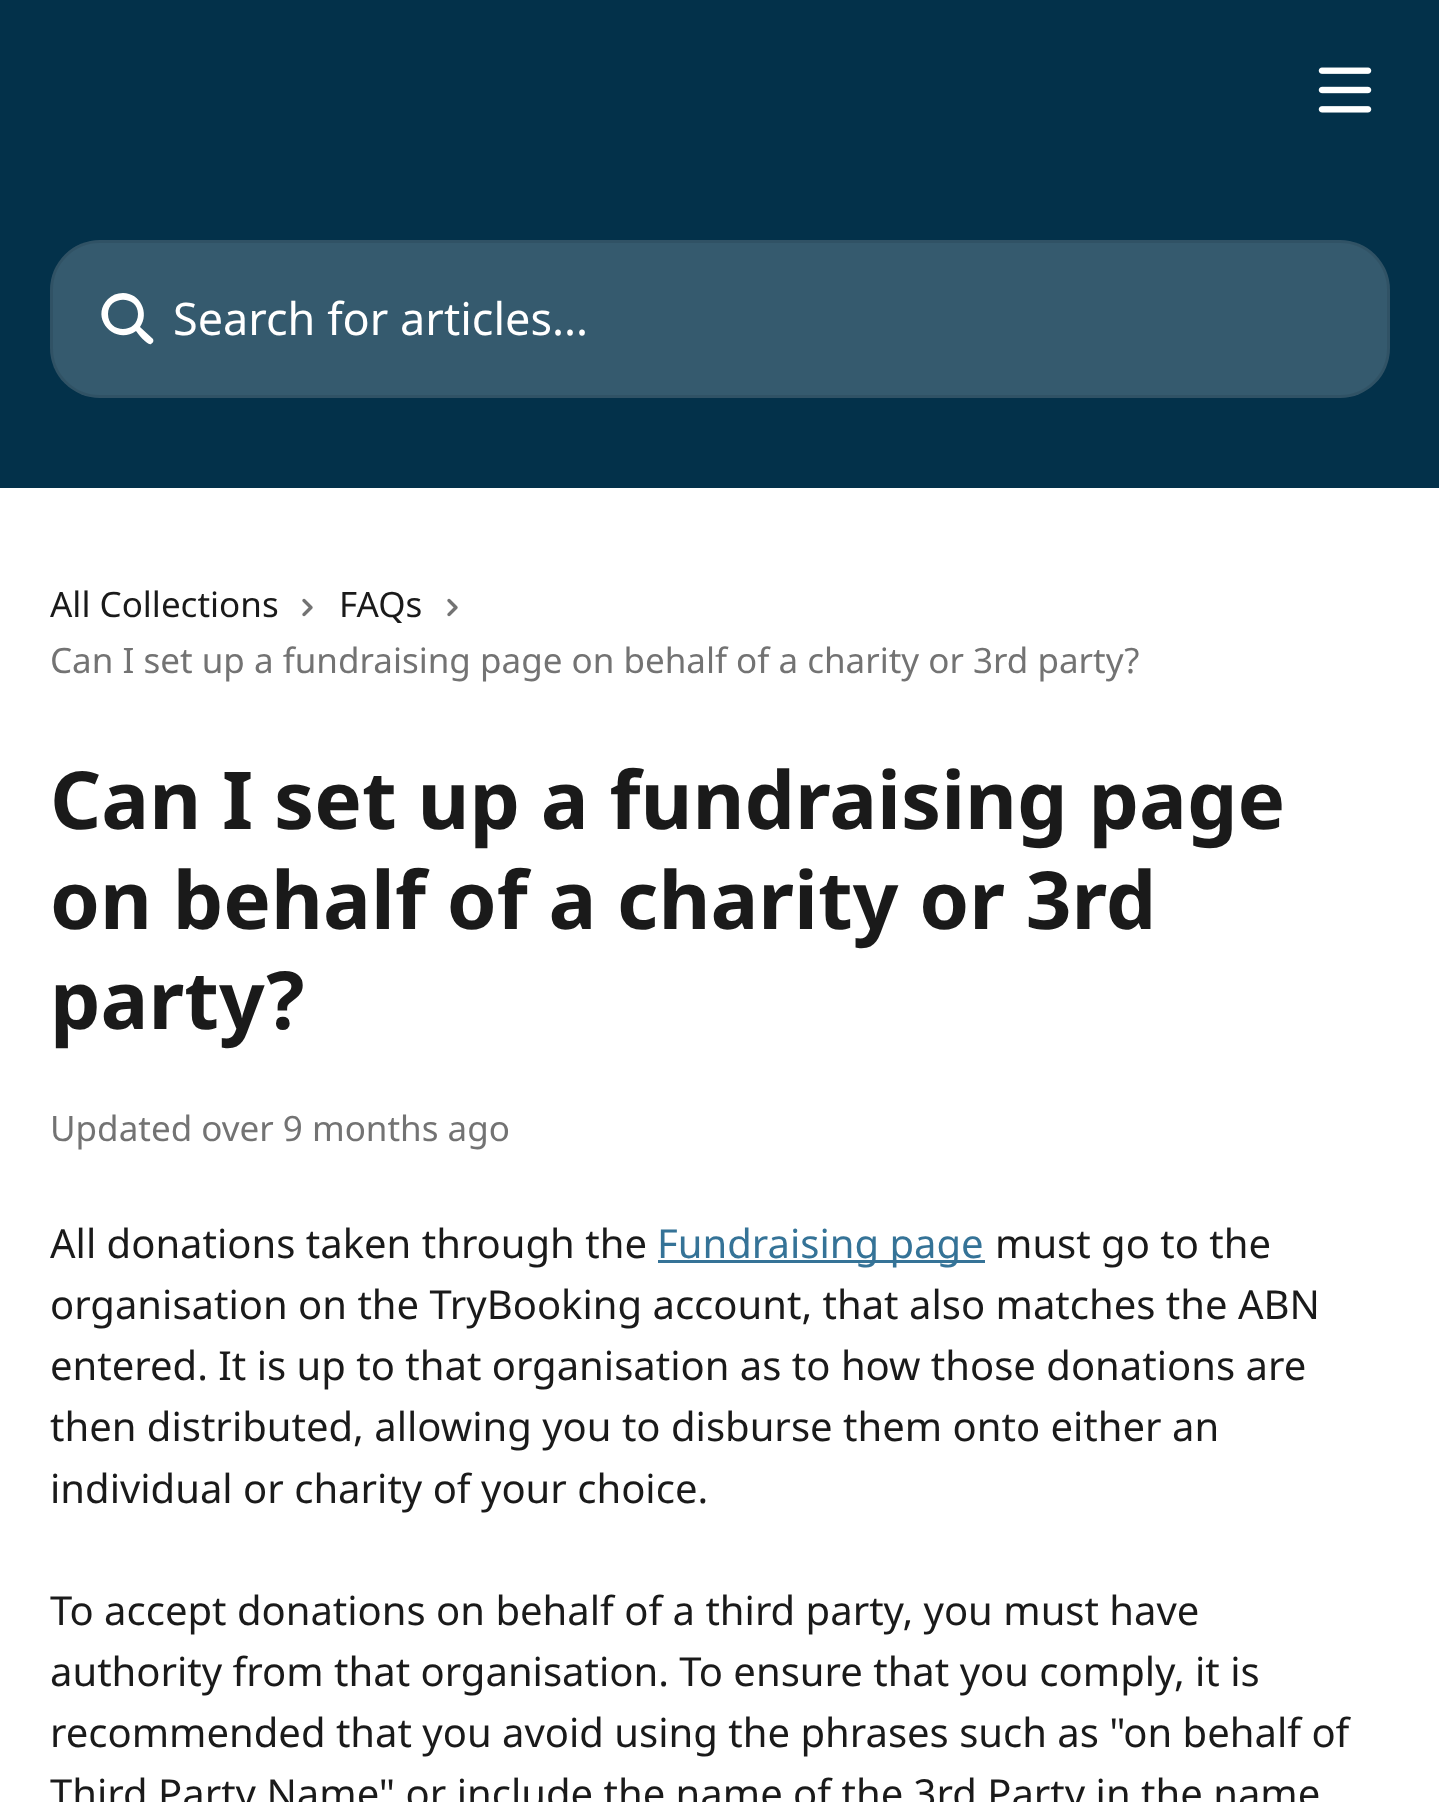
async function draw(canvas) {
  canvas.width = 1439
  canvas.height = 1802
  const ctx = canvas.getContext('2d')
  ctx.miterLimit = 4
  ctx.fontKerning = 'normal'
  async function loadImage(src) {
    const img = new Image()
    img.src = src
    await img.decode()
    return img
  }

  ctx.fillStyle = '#fff'
  ctx.fillRect(0, 0, 1439, 1802)
  ctx.fillStyle = '#03314a'
  ctx.fillRect(0, 0, 1439, 488)
  ctx.drawImage(await loadImage('image0.png'), 1318, 67, 54, 46)
  ctx.fillStyle = '#ffffff33'
  ctx.beginPath()
  ctx.roundRect(50, 240, 1340, 158, 50)
  ctx.fill()
  ctx.beginPath()
  ctx.roundRect(51.5, 241.5, 1337, 155, 48.5)
  ctx.strokeStyle = '#00000014'
  ctx.lineWidth = 3
  ctx.stroke()
  ctx.fillStyle = '#fff'
  ctx.beginPath()
  ctx.moveTo(108, 314)
  ctx.bezierCurveTo(108, 295, 138, 295, 138, 314)
  ctx.bezierCurveTo(138, 334, 108, 334, 108, 314)
  ctx.closePath()
  ctx.moveTo(123, 293)
  ctx.bezierCurveTo(117, 293, 112, 295, 108, 299)
  ctx.bezierCurveTo(89, 318, 115, 346, 136, 331)
  ctx.bezierCurveTo(138, 334, 148, 346, 151, 344)
  ctx.bezierCurveTo(153, 343, 154, 341, 153, 339)
  ctx.lineTo(140, 327)
  ctx.bezierCurveTo(150, 313, 140, 293, 123, 293)
  ctx.closePath()
  ctx.fill('evenodd')
  ctx.font = '45px Noto Sans'
  ctx.fillText('Search for articles...', 173, 335)
  ctx.font = '35px Noto Sans'
  ctx.fillStyle = '#1a1a1a'
  ctx.fillText('All Collections', 50, 617)
  ctx.drawImage(await loadImage('image1.png'), 302, 598, 11, 19)
  ctx.fillText('FAQs', 339, 617)
  ctx.drawImage(await loadImage('image1.png'), 447, 598, 11, 19)
  ctx.fillStyle = '#737373'
  ctx.fillText('Can I set up a fundraising page on behalf of a charity or 3rd party?', 50, 673)
  ctx.font = 'bold 80px Noto Sans'
  ctx.fillStyle = '#1a1a1a'
  ctx.fillText('Can I set up a fundraising page', 50, 829)
  ctx.fillText('on behalf of a charity or 3rd', 50, 929)
  ctx.fillText('party?', 50, 1029)
  ctx.font = '35px Noto Sans'
  ctx.fillStyle = '#737373'
  ctx.fillText('Updated over 9 months ago', 50, 1141)
  ctx.font = '40px Noto Sans'
  ctx.fillStyle = '#1a1a1a'
  ctx.fillText('All donations taken through the', 50, 1258)
  ctx.fillStyle = '#357397'
  ctx.fillRect(658, 1260, 327, 3)
  ctx.fillText('Fundraising page', 657, 1258)
  ctx.fillStyle = '#1a1a1a'
  ctx.fillText('must go to the', 995, 1258)
  ctx.fillText('organisation on the TryBooking account, that also matches the ABN', 50, 1319)
  ctx.fillText('entered. It is up to that organisation as to how those donations are', 50, 1380)
  ctx.fillText('then distributed, allowing you to disburse them onto either an', 50, 1441)
  ctx.fillText('individual or charity of your choice.', 50, 1503)
  ctx.fillText('To accept donations on behalf of a third party, you must have', 50, 1625)
  ctx.fillText('authority from that organisation. To ensure that you comply, it is', 50, 1686)
  ctx.fillText('recommended that you avoid using the phrases such as "on behalf of', 50, 1747)
  ctx.fillText('Third Party Name" or include the name of the 3rd Party in the name', 50, 1808)
}

draw(document.querySelector('canvas'))
